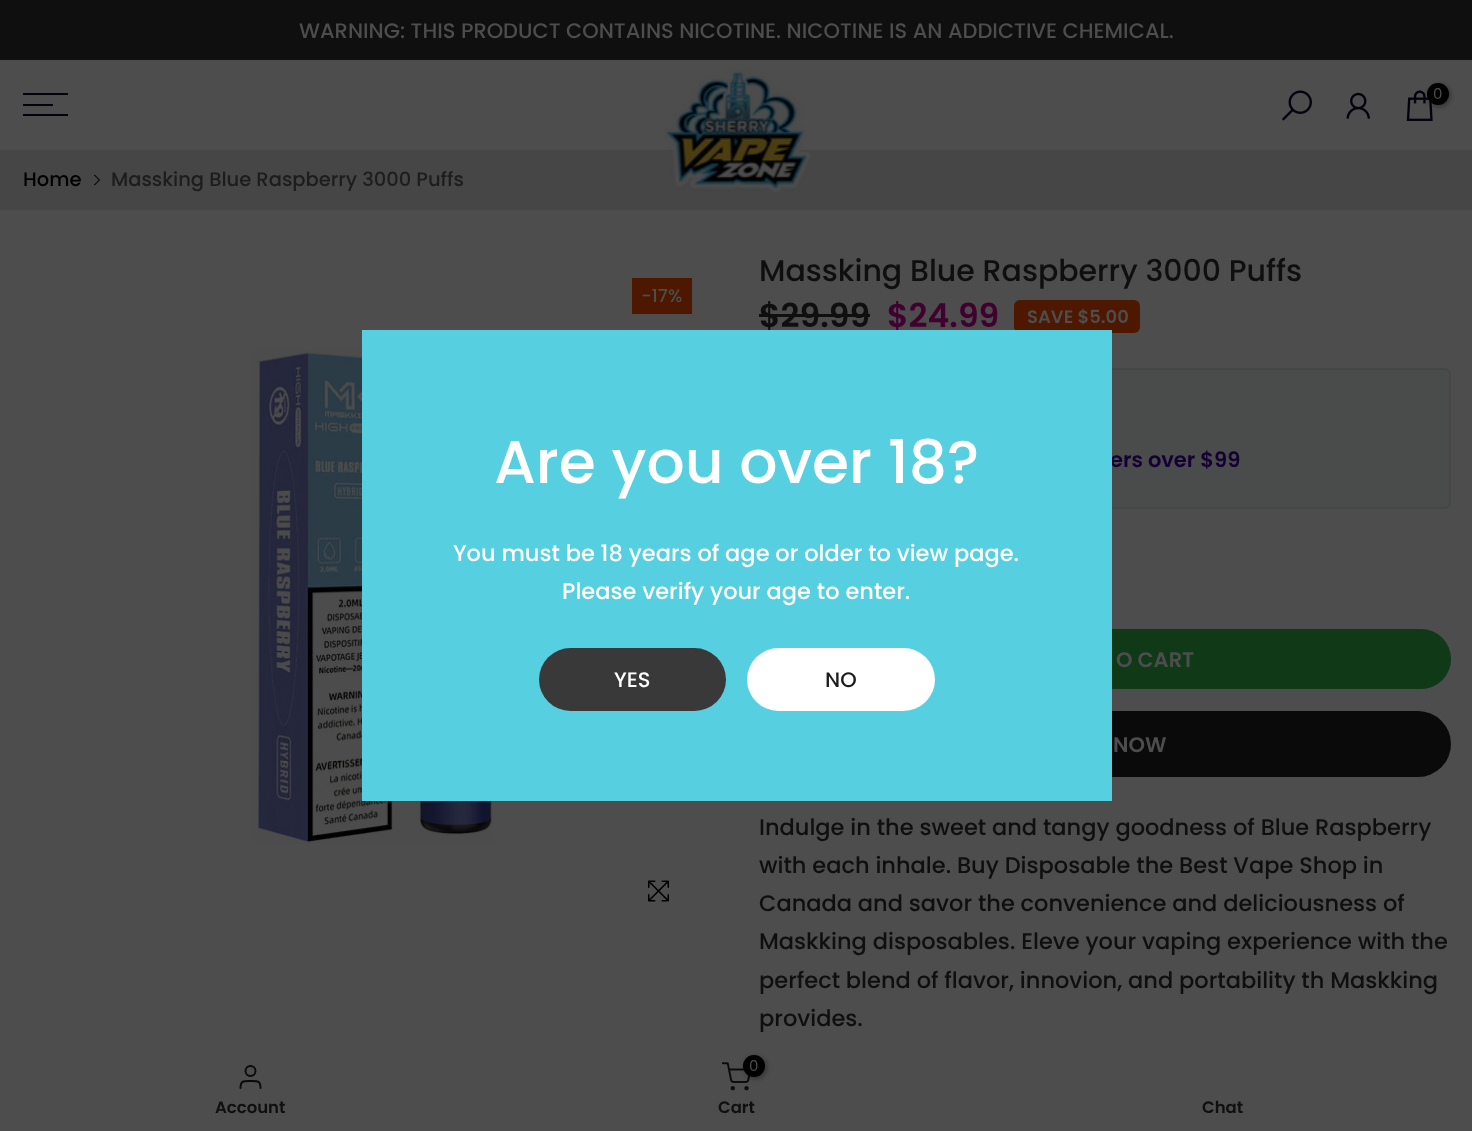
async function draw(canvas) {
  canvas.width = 1472
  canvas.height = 1131
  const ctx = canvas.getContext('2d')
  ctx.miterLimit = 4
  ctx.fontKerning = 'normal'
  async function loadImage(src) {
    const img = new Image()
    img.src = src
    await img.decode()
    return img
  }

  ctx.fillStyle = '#4d4d4d'
  ctx.fillRect(0, 0, 1472, 1131)
  ctx.fillStyle = '#0f0f0f'
  ctx.fillRect(0, 0, 1472, 60)
  ctx.font = '500 21px Poppins'
  ctx.fillStyle = '#4d4d4d'
  ctx.fillText('WARNING: THIS PRODUCT CONTAINS NICOTINE. NICOTINE IS AN ADDICTIVE CHEMICAL.', 299, 38)
  ctx.fillStyle = '#03030f'
  ctx.fillRect(23, 93, 45, 2)
  ctx.fillRect(23, 104, 30, 2)
  ctx.fillRect(23, 114, 45, 2)
  ctx.fillStyle = '#464646'
  ctx.fillRect(0, 150, 1472, 60)
  ctx.drawImage(await loadImage('image0.png'), 664, 68, 147, 125)
  ctx.drawImage(await loadImage('image1.png'), 1282, 90, 30, 31)
  ctx.drawImage(await loadImage('image2.png'), 1346, 92, 24, 27)
  ctx.drawImage(await loadImage('image3.png'), 1406, 90, 27, 31)
  ctx.fillStyle = '#0000004d'
  ctx.filter = 'blur(2px)'
  ctx.beginPath()
  ctx.roundRect(1428, 84, 23, 23, 11.5)
  ctx.fill()
  ctx.filter = 'none'
  ctx.fillStyle = '#000'
  ctx.beginPath()
  ctx.arc(1438, 94, 11, 0, 2 * Math.PI)
  ctx.fill()
  ctx.font = '15px Poppins'
  ctx.fillStyle = '#4d4d4d'
  ctx.fillText('0', 1433, 99)
  ctx.font = '500 19.5px Poppins'
  ctx.fillStyle = '#010101'
  ctx.fillText('Home', 23, 186)
  ctx.drawImage(await loadImage('image4.png'), 94, 174, 6, 12)
  ctx.fillStyle = '#1d1d1d'
  ctx.fillText('Massking Blue Raspberry 3000 Puffs', 111, 186)
  ctx.fillStyle = '#4d1700'
  ctx.fillRect(632, 278, 60, 36)
  ctx.font = '500 18px Poppins'
  ctx.fillStyle = '#4d4d4d'
  ctx.fillText('-17%', 641, 302)
  ctx.drawImage(await loadImage('image5.png'), 253, 350, 240, 494)
  ctx.drawImage(await loadImage('image6.png'), 648, 880, 21, 22)
  ctx.font = '500 30px Poppins'
  ctx.fillStyle = '#0f0f0f'
  ctx.fillText('Massking Blue Raspberry 3000 Puffs', 759, 281)
  ctx.font = '600 33px Poppins'
  ctx.fillText('$29.99', 759, 327)
  ctx.fillRect(759, 314, 111, 3)
  ctx.fillStyle = '#400131'
  ctx.fillText('$24.99', 887, 327)
  ctx.fillStyle = '#4d1700'
  ctx.beginPath()
  ctx.roundRect(1014, 300, 126, 33, 6)
  ctx.fill()
  ctx.font = '600 18px Poppins'
  ctx.fillStyle = '#4d4d4d'
  ctx.fillText('SAVE $5.00', 1027, 323)
  ctx.fillStyle = '#4a4b4b'
  ctx.beginPath()
  ctx.roundRect(760, 369, 690, 139, 5)
  ctx.fill()
  ctx.strokeStyle = '#464548'
  ctx.lineWidth = 2
  ctx.stroke()
  ctx.font = '600 21px Poppins'
  ctx.fillStyle = '#150036'
  ctx.fillText('ers over $99', 1110, 467)
  ctx.fillStyle = '#0f3917'
  ctx.beginPath()
  ctx.roundRect(759, 629, 692, 60, 30)
  ctx.fill()
  ctx.fillStyle = '#4d4d4d'
  ctx.fillText('O CART', 1116, 667)
  ctx.fillStyle = '#0a0a0a'
  ctx.beginPath()
  ctx.roundRect(759, 711, 692, 66, 33)
  ctx.fill()
  ctx.fillStyle = '#4d4d4d'
  ctx.fillText('NOW', 1113, 752)
  ctx.font = '500 22.5px Poppins'
  ctx.fillStyle = '#0f0f0f'
  ctx.fillText('Indulge in the sweet and tangy goodness of Blue Raspberry', 759, 835)
  ctx.fillText('with each inhale. Buy Disposable the Best Vape Shop in', 759, 873)
  ctx.fillText('Canada and savor the convenience and deliciousness of', 759, 911)
  ctx.fillText('Maskking disposables. Eleve your vaping experience with the', 759, 949)
  ctx.fillText('perfect blend of flavor, innovion, and portability th Maskking', 759, 988)
  ctx.fillText('provides.', 759, 1026)
  ctx.fillStyle = '#56cfe1'
  ctx.fillRect(362, 330, 750, 471)
  ctx.font = '500 60px Poppins'
  ctx.fillStyle = '#fff'
  ctx.fillText('Are you over 18?', 494, 483)
  ctx.font = '500 22.5px Poppins'
  ctx.fillText('You must be 18 years of age or older to view page.', 453, 561)
  ctx.fillText('Please verify your age to enter.', 562, 599)
  ctx.fillStyle = '#393939'
  ctx.beginPath()
  ctx.roundRect(539, 648, 187, 63, 31.5)
  ctx.fill()
  ctx.font = '500 21px Poppins'
  ctx.fillStyle = '#fff'
  ctx.fillText('YES', 614, 687)
  ctx.beginPath()
  ctx.roundRect(747, 648, 188, 63, 31.5)
  ctx.fill()
  ctx.fillStyle = '#1d1d1d'
  ctx.fillText('NO', 825, 687)
  ctx.beginPath()
  ctx.arc(250.5, 1071, 5, 0, 2 * Math.PI)
  ctx.strokeStyle = '#0a0a0a'
  ctx.lineWidth = 1.9
  ctx.stroke()
  ctx.beginPath()
  ctx.moveTo(260.5, 1088)
  ctx.bezierCurveTo(260.5, 1080.5, 257.5, 1081, 250.5, 1081)
  ctx.bezierCurveTo(243.5, 1081, 240.5, 1080.5, 240.5, 1088)
  ctx.lineCap = 'round'
  ctx.lineJoin = 'round'
  ctx.stroke()
  ctx.font = '600 16.5px Poppins'
  ctx.fillStyle = '#0f0f0f'
  ctx.fillText('Account', 215, 1113)
  ctx.drawImage(await loadImage('image7.png'), 722, 1062, 28, 29)
  ctx.fillStyle = '#0000004d'
  ctx.filter = 'blur(2px)'
  ctx.beginPath()
  ctx.roundRect(744, 1056, 23, 23, 11.5)
  ctx.fill()
  ctx.filter = 'none'
  ctx.fillStyle = '#000'
  ctx.beginPath()
  ctx.arc(754, 1066, 11, 0, 2 * Math.PI)
  ctx.fill()
  ctx.font = '15px Poppins'
  ctx.fillStyle = '#4d4d4d'
  ctx.fillText('0', 749, 1071)
  ctx.font = '600 16.5px Poppins'
  ctx.fillStyle = '#0f0f0f'
  ctx.fillText('Cart', 718, 1113)
  ctx.fillText('Chat', 1202, 1113)
}

draw(document.querySelector('canvas'))
